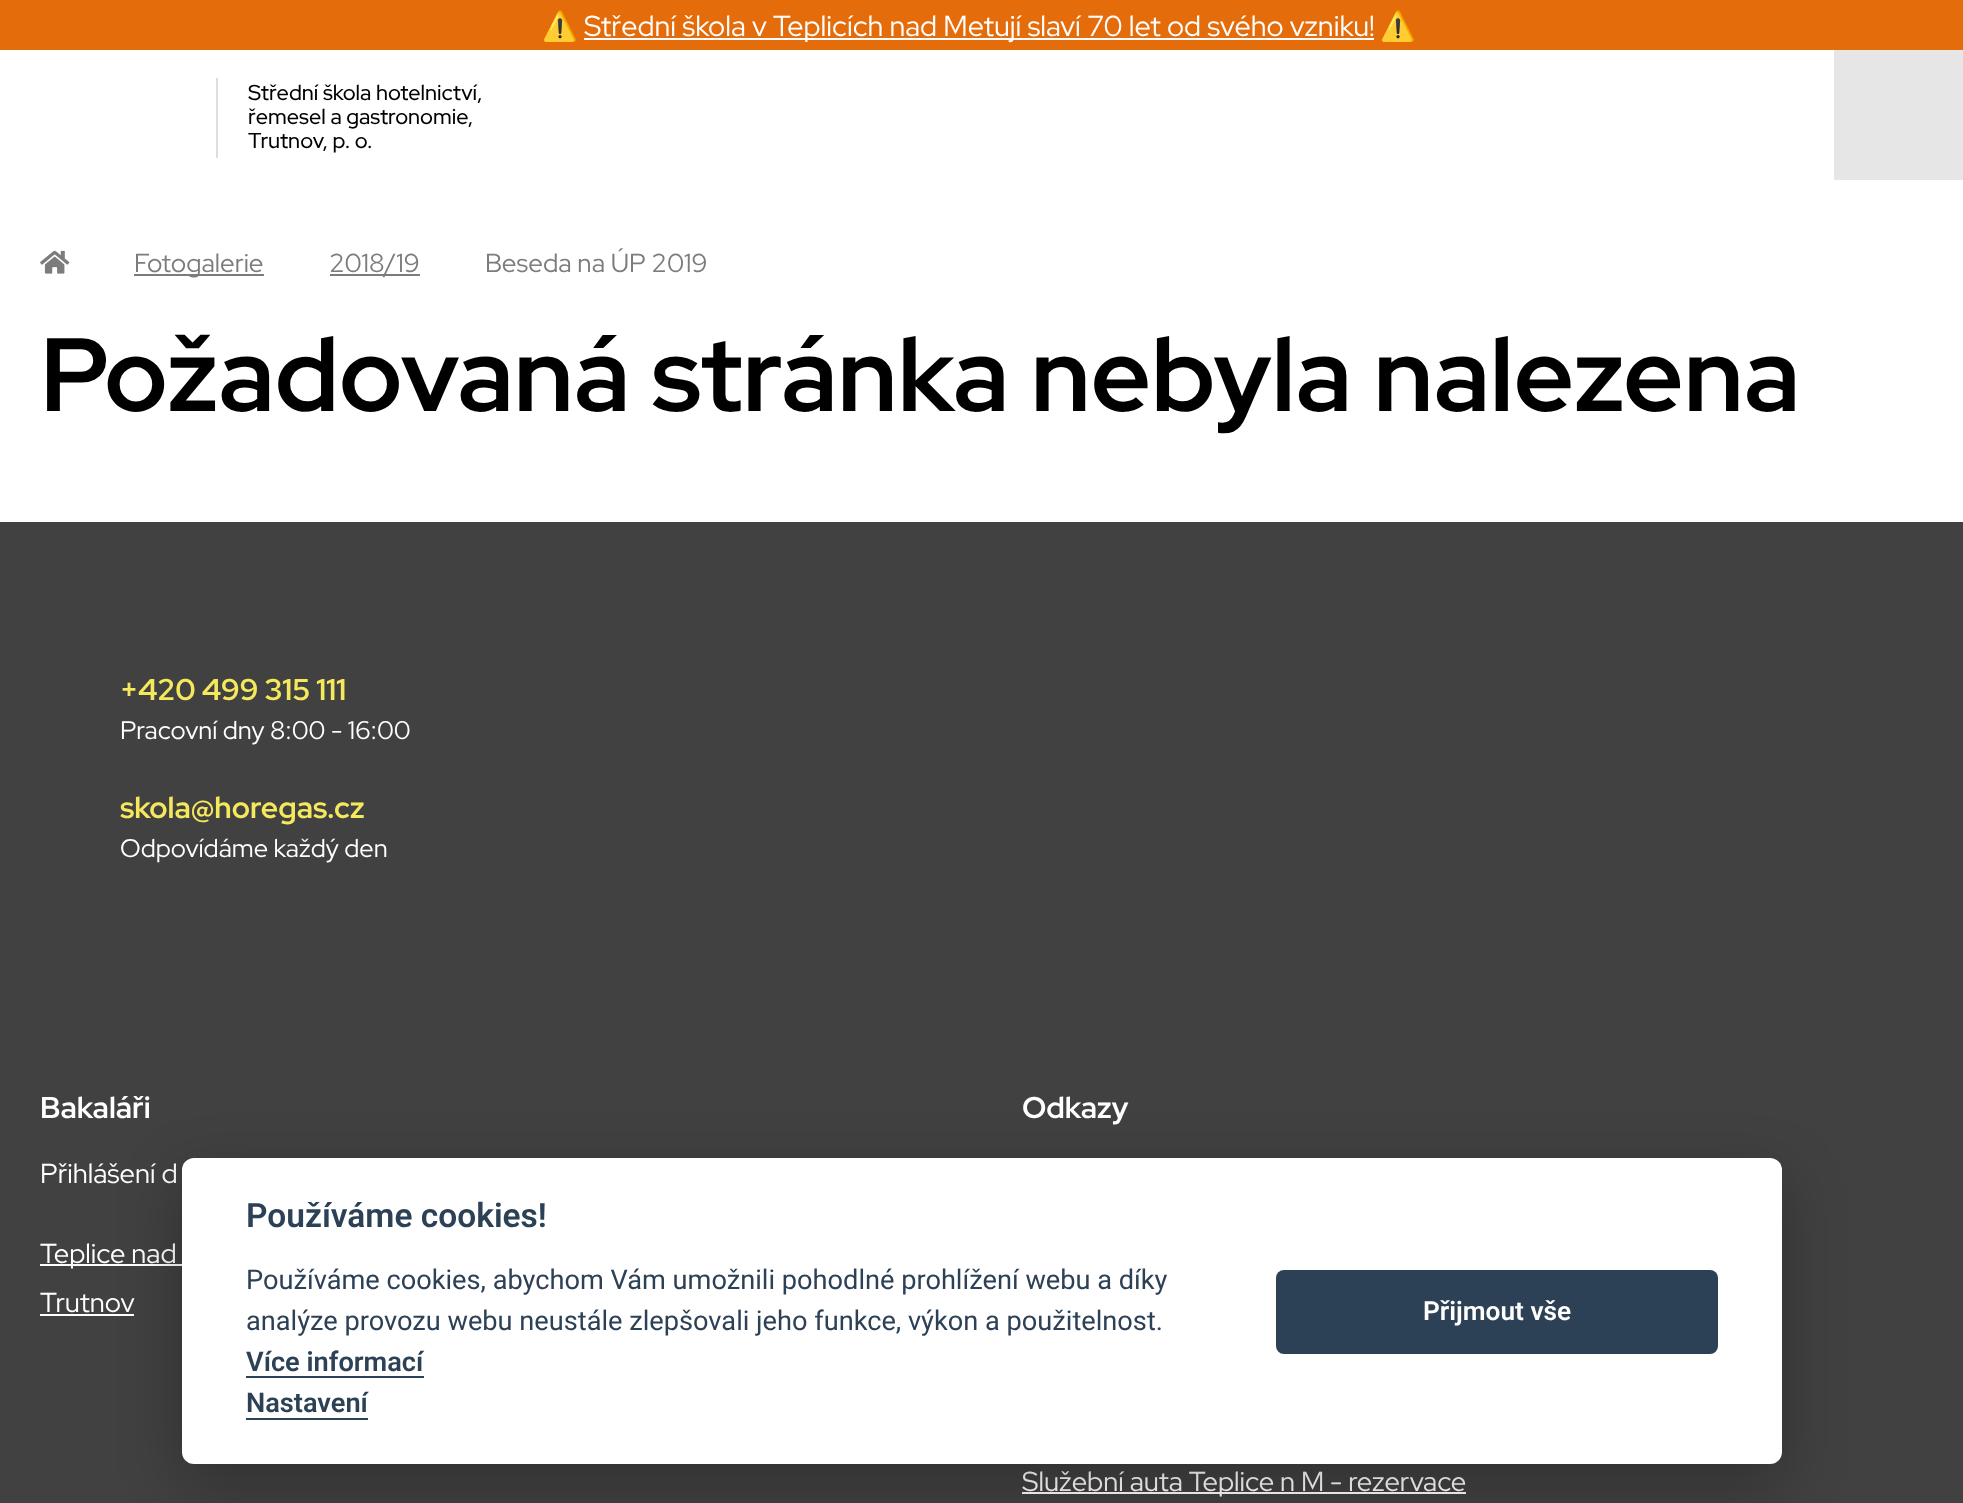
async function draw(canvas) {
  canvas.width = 1963
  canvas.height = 1503
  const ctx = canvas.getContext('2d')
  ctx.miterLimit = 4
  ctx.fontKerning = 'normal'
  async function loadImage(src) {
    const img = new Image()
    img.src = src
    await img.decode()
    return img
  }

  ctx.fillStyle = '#fff'
  ctx.fillRect(0, 0, 1963, 1503)
  ctx.fillStyle = '#e46c0b'
  ctx.fillRect(0, 0, 1963, 50)
  ctx.font = '28.8px Noto Color Emoji'
  ctx.fillStyle = '#fff'
  ctx.fillText('⚠️', 542, 36)
  ctx.fillRect(584, 38, 790, 2)
  ctx.font = '28.8px Red Hat Display'
  ctx.fillText('Střední škola v Teplicích nad Metují slaví 70 let od svého vzniku!', 584, 36)
  ctx.font = '28.8px Noto Color Emoji'
  ctx.fillText('⚠️', 1380, 36)
  ctx.fillStyle = '#dedede'
  ctx.fillRect(216, 78, 2, 80)
  ctx.font = '500 21.6px Red Hat Display'
  ctx.fillStyle = '#000'
  ctx.fillText('Střední škola hotelnictví,', 248, 100)
  ctx.fillText('řemesel a gastronomie,', 248, 124)
  ctx.fillText('Trutnov, p. o.', 248, 148)
  ctx.fillStyle = '#e6e6e6'
  ctx.fillRect(1834, 50, 129, 130)
  ctx.drawImage(await loadImage('image0.png'), 40, 250, 30, 24)
  ctx.fillStyle = '#7c7c7c'
  ctx.fillRect(134, 274, 130, 2)
  ctx.font = '26px Red Hat Display'
  ctx.fillText('Fotogalerie', 134, 272)
  ctx.fillRect(330, 274, 90, 2)
  ctx.fillText('2018/19', 329, 272)
  ctx.fillText('Beseda na ÚP 2019', 485, 272)
  ctx.font = 'bold 104px Red Hat Display'
  ctx.fillStyle = '#000'
  ctx.fillText('Požadovaná stránka nebyla nalezena', 40, 411)
  ctx.fillStyle = '#414141'
  ctx.fillRect(0, 522, 1963, 981)
  ctx.font = 'bold 30px Red Hat Display'
  ctx.fillStyle = '#f4e85d'
  ctx.fillText('+420 499 315 111', 120, 700)
  ctx.font = '25.5px Red Hat Display'
  ctx.fillStyle = '#fff'
  ctx.fillText('Pracovní dny 8:00 - 16:00', 120, 739)
  ctx.font = 'bold 30px Red Hat Display'
  ctx.fillStyle = '#f4e85d'
  ctx.fillText('skola@horegas.cz', 120, 818)
  ctx.font = '25.5px Red Hat Display'
  ctx.fillStyle = '#fff'
  ctx.fillText('Odpovídáme každý den', 120, 857)
  ctx.font = 'bold 30px Red Hat Display'
  ctx.fillText('Bakaláři', 40, 1118)
  ctx.font = '27.4px Red Hat Display'
  ctx.fillText('Přihlášení d', 40, 1183)
  ctx.fillRect(40, 1264, 142, 2)
  ctx.fillText('Teplice nad', 40, 1263)
  ctx.fillText('Trutnov', 40, 1312)
  ctx.fillRect(40, 1314, 94, 2)
  ctx.font = 'bold 30px Red Hat Display'
  ctx.fillText('Odkazy', 1022, 1118)
  ctx.fillRect(1022, 1492, 444, 2)
  ctx.font = '27.4px Red Hat Display'
  ctx.fillText('Služební auta Teplice n M - rezervace', 1022, 1491)
  ctx.fillStyle = '#02020347'
  ctx.filter = 'blur(30px)'
  ctx.beginPath()
  ctx.roundRect(182, 1178, 1600, 306, 12)
  ctx.fill()
  ctx.filter = 'none'
  ctx.fillStyle = '#fff'
  ctx.beginPath()
  ctx.roundRect(182, 1158, 1600, 306, 12)
  ctx.fill()
  ctx.font = '600 33.5px Roboto'
  ctx.fillStyle = '#2d4156'
  ctx.fillText('Používáme cookies!', 246, 1227)
  ctx.font = '27.2px Roboto'
  ctx.fillText('Používáme cookies, abychom Vám umožnili pohodlné prohlížení webu a díky', 246, 1289)
  ctx.fillText('analýze provozu webu neustále zlepšovali jeho funkce, výkon a použitelnost.', 246, 1330)
  ctx.font = '600 27.2px Roboto'
  ctx.fillText('Více informací', 246, 1371)
  ctx.fillRect(246, 1376, 178, 2)
  ctx.fillText('Nastavení', 246, 1412)
  ctx.fillRect(246, 1418, 122, 2)
  ctx.beginPath()
  ctx.roundRect(1276, 1270, 442, 84, 8)
  ctx.fill()
  ctx.font = '600 26.25px Roboto'
  ctx.fillStyle = '#fff'
  ctx.fillText('Přijmout vše', 1423, 1320)
}

draw(document.querySelector('canvas'))
